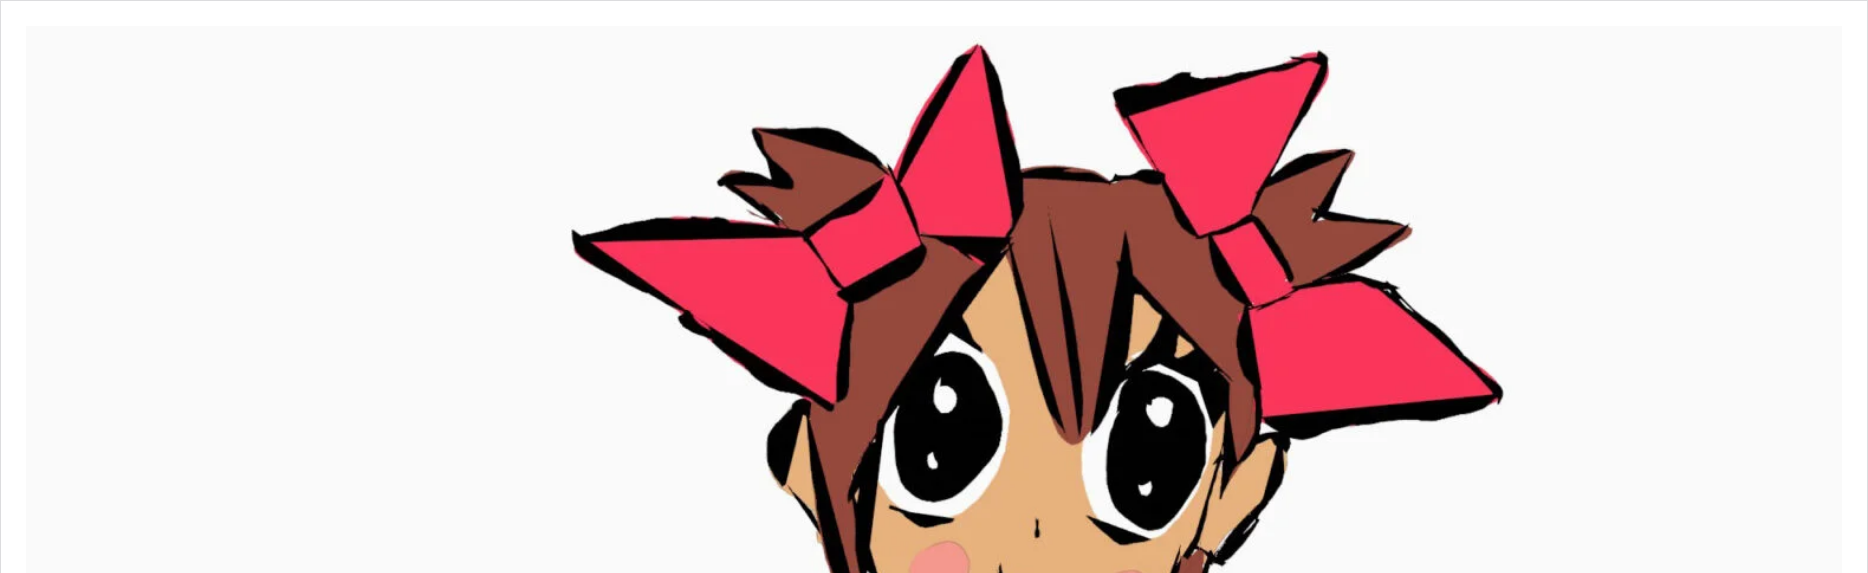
async function draw(canvas) {
  canvas.width = 1868
  canvas.height = 573
  const ctx = canvas.getContext('2d')
  ctx.miterLimit = 4
  ctx.fontKerning = 'normal'
  async function loadImage(src) {
    const img = new Image()
    img.src = src
    await img.decode()
    return img
  }

  ctx.fillStyle = '#fff'
  ctx.fillRect(0, 0, 1868, 573)
  ctx.strokeStyle = '#dcdcde'
  ctx.strokeRect(0.5, 0.5, 1867, 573)
  ctx.drawImage(await loadImage('image0.png'), 26, 26, 1816, 547)
}

draw(document.querySelector('canvas'))
